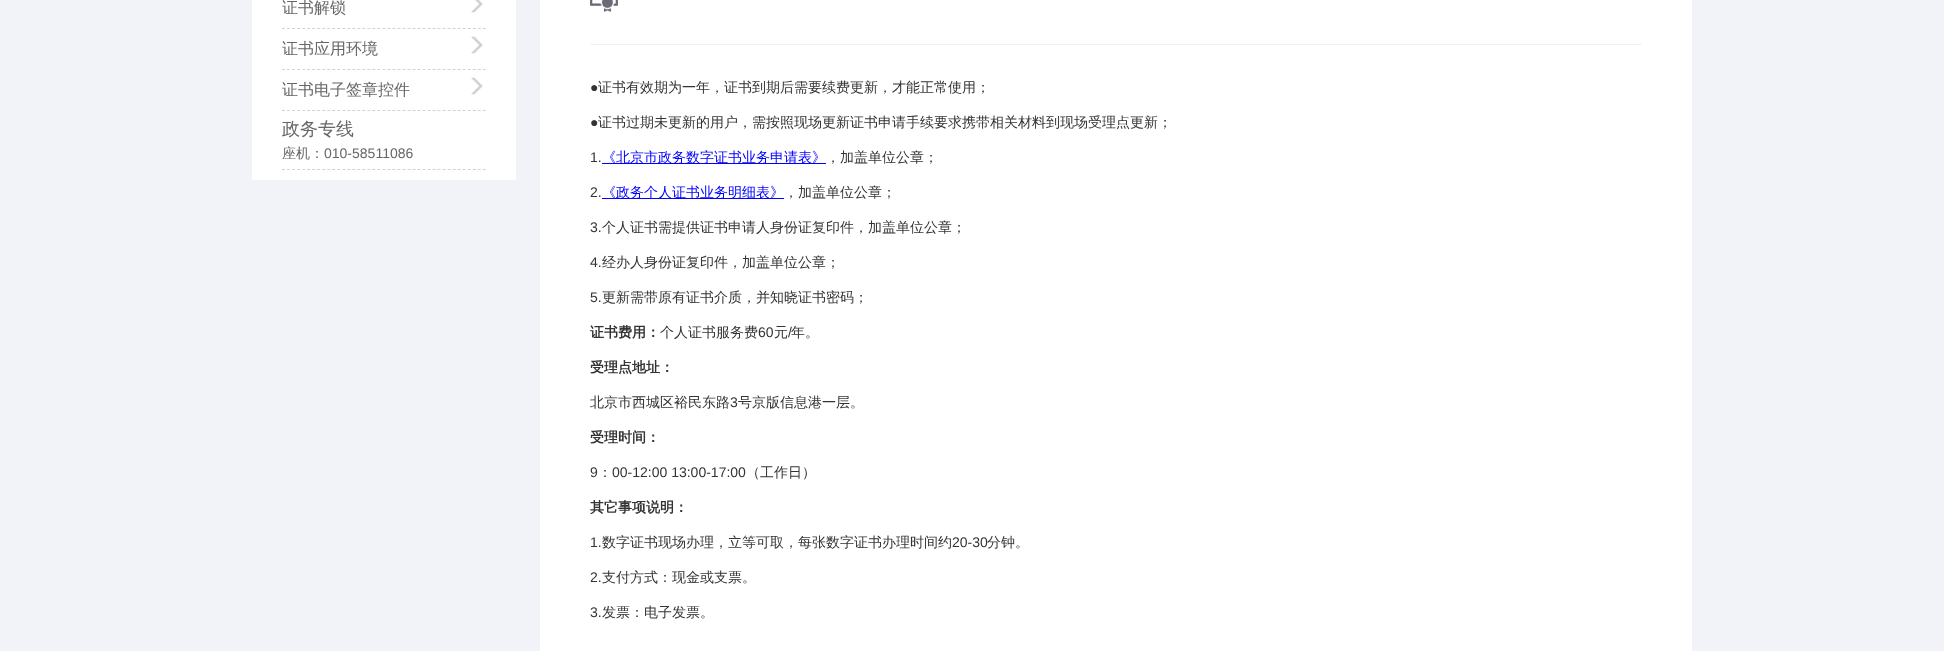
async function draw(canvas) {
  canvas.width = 1944
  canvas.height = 651
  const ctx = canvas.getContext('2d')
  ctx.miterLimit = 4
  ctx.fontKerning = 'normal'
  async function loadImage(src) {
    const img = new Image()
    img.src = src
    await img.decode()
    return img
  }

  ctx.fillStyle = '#f1f3f9'
  ctx.fillRect(0, 0, 1944, 651)
  ctx.fillStyle = '#fff'
  ctx.fillRect(252, 0, 264, 180)
  ctx.beginPath()
  ctx.moveTo(282, 28.5)
  ctx.lineTo(486, 28.5)
  ctx.strokeStyle = '#d3d3d3'
  ctx.setLineDash([3, 2.02])
  ctx.stroke()
  ctx.font = '500 16px WenQuanYi Zen Hei'
  ctx.fillStyle = '#666'
  ctx.fillText('证书解锁', 282, 13)
  ctx.drawImage(await loadImage('image0.png'), 471, 0, 12, 13)
  ctx.beginPath()
  ctx.moveTo(282, 69.5)
  ctx.lineTo(486, 69.5)
  ctx.stroke()
  ctx.fillText('证书应用环境', 282, 54)
  ctx.drawImage(await loadImage('image1.png'), 471, 36, 12, 18)
  ctx.beginPath()
  ctx.moveTo(282, 110.5)
  ctx.lineTo(486, 110.5)
  ctx.stroke()
  ctx.fillText('证书电子签章控件', 282, 95)
  ctx.drawImage(await loadImage('image1.png'), 471, 77, 12, 18)
  ctx.beginPath()
  ctx.moveTo(282, 169.5)
  ctx.lineTo(486, 169.5)
  ctx.stroke()
  ctx.font = '500 18px WenQuanYi Zen Hei'
  ctx.fillText('政务专线', 282, 135)
  ctx.font = '500 14px WenQuanYi Zen Hei'
  ctx.fillText('座机：', 282, 158)
  ctx.font = '14px Liberation Sans'
  ctx.fillText('010-58511086', 324, 158)
  ctx.fillStyle = '#fff'
  ctx.fillRect(540, 0, 1152, 651)
  ctx.fillStyle = '#f0f0f0'
  ctx.fillRect(590, 44, 1052, 1)
  ctx.drawImage(await loadImage('image2.png'), 590, 0, 28, 12)
  ctx.fillStyle = '#333'
  ctx.fillText('●', 590, 92)
  ctx.font = '500 14px WenQuanYi Zen Hei'
  ctx.fillText('证书有效期为一年，证书到期后需要续费更新，才能正常使用；', 598, 92)
  ctx.font = '14px Liberation Sans'
  ctx.fillText('●', 590, 127)
  ctx.font = '500 14px WenQuanYi Zen Hei'
  ctx.fillText('证书过期未更新的用户，需按照现场更新证书申请手续要求携带相关材料到现场受理点更新；', 598, 127)
  ctx.font = '14px Liberation Sans'
  ctx.fillText('1.', 590, 162)
  ctx.fillStyle = '#00f'
  ctx.fillRect(602, 163, 224, 1)
  ctx.font = '500 14px WenQuanYi Zen Hei'
  ctx.fillText('《北京市政务数字证书业务申请表》', 602, 162)
  ctx.fillStyle = '#333'
  ctx.fillText('，加盖单位公章；', 826, 162)
  ctx.font = '14px Liberation Sans'
  ctx.fillText('2.', 590, 197)
  ctx.fillStyle = '#00f'
  ctx.fillRect(602, 198, 182, 1)
  ctx.font = '500 14px WenQuanYi Zen Hei'
  ctx.fillText('《政务个人证书业务明细表》', 602, 197)
  ctx.fillStyle = '#333'
  ctx.fillText('，加盖单位公章；', 784, 197)
  ctx.font = '14px Liberation Sans'
  ctx.fillText('3.', 590, 232)
  ctx.font = '500 14px WenQuanYi Zen Hei'
  ctx.fillText('个人证书需提供证书申请人身份证复印件，加盖单位公章；', 602, 232)
  ctx.font = '14px Liberation Sans'
  ctx.fillText('4.', 590, 267)
  ctx.font = '500 14px WenQuanYi Zen Hei'
  ctx.fillText('经办人身份证复印件，加盖单位公章；', 602, 267)
  ctx.font = '14px Liberation Sans'
  ctx.fillText('5.', 590, 302)
  ctx.font = '500 14px WenQuanYi Zen Hei'
  ctx.fillText('更新需带原有证书介质，并知晓证书密码；', 602, 302)
  ctx.font = 'bold 14px WenQuanYi Zen Hei'
  ctx.fillText('证书费用：', 590, 337)
  ctx.font = '500 14px WenQuanYi Zen Hei'
  ctx.fillText('个人证书服务费', 660, 337)
  ctx.font = '14px Liberation Sans'
  ctx.fillText('60', 758, 337)
  ctx.font = '500 14px WenQuanYi Zen Hei'
  ctx.fillText('元', 774, 337)
  ctx.font = '14px Liberation Sans'
  ctx.fillText('/', 788, 337)
  ctx.font = '500 14px WenQuanYi Zen Hei'
  ctx.fillText('年。', 791, 337)
  ctx.font = 'bold 14px WenQuanYi Zen Hei'
  ctx.fillText('受理点地址：', 590, 372)
  ctx.font = '500 14px WenQuanYi Zen Hei'
  ctx.fillText('北京市西城区裕民东路', 590, 407)
  ctx.font = '14px Liberation Sans'
  ctx.fillText('3', 730, 407)
  ctx.font = '500 14px WenQuanYi Zen Hei'
  ctx.fillText('号京版信息港一层。', 738, 407)
  ctx.font = 'bold 14px WenQuanYi Zen Hei'
  ctx.fillText('受理时间：', 590, 442)
  ctx.font = '14px Liberation Sans'
  ctx.fillText('9', 590, 477)
  ctx.font = '500 14px WenQuanYi Zen Hei'
  ctx.fillText('：', 598, 477)
  ctx.font = '14px Liberation Sans'
  ctx.fillText('00-12:00 13:00-17:00', 612, 477)
  ctx.font = '500 14px WenQuanYi Zen Hei'
  ctx.fillText('（工作日）', 746, 477)
  ctx.font = 'bold 14px WenQuanYi Zen Hei'
  ctx.fillText('其它事项说明：', 590, 512)
  ctx.font = '14px Liberation Sans'
  ctx.fillText('1.', 590, 547)
  ctx.font = '500 14px WenQuanYi Zen Hei'
  ctx.fillText('数字证书现场办理，立等可取，每张数字证书办理时间约', 602, 547)
  ctx.font = '14px Liberation Sans'
  ctx.fillText('20-30', 952, 547)
  ctx.font = '500 14px WenQuanYi Zen Hei'
  ctx.fillText('分钟。', 987, 547)
  ctx.font = '14px Liberation Sans'
  ctx.fillText('2.', 590, 582)
  ctx.font = '500 14px WenQuanYi Zen Hei'
  ctx.fillText('支付方式：现金或支票。', 602, 582)
  ctx.font = '14px Liberation Sans'
  ctx.fillText('3.', 590, 617)
  ctx.font = '500 14px WenQuanYi Zen Hei'
  ctx.fillText('发票：电子发票。', 602, 617)
}

draw(document.querySelector('canvas'))
